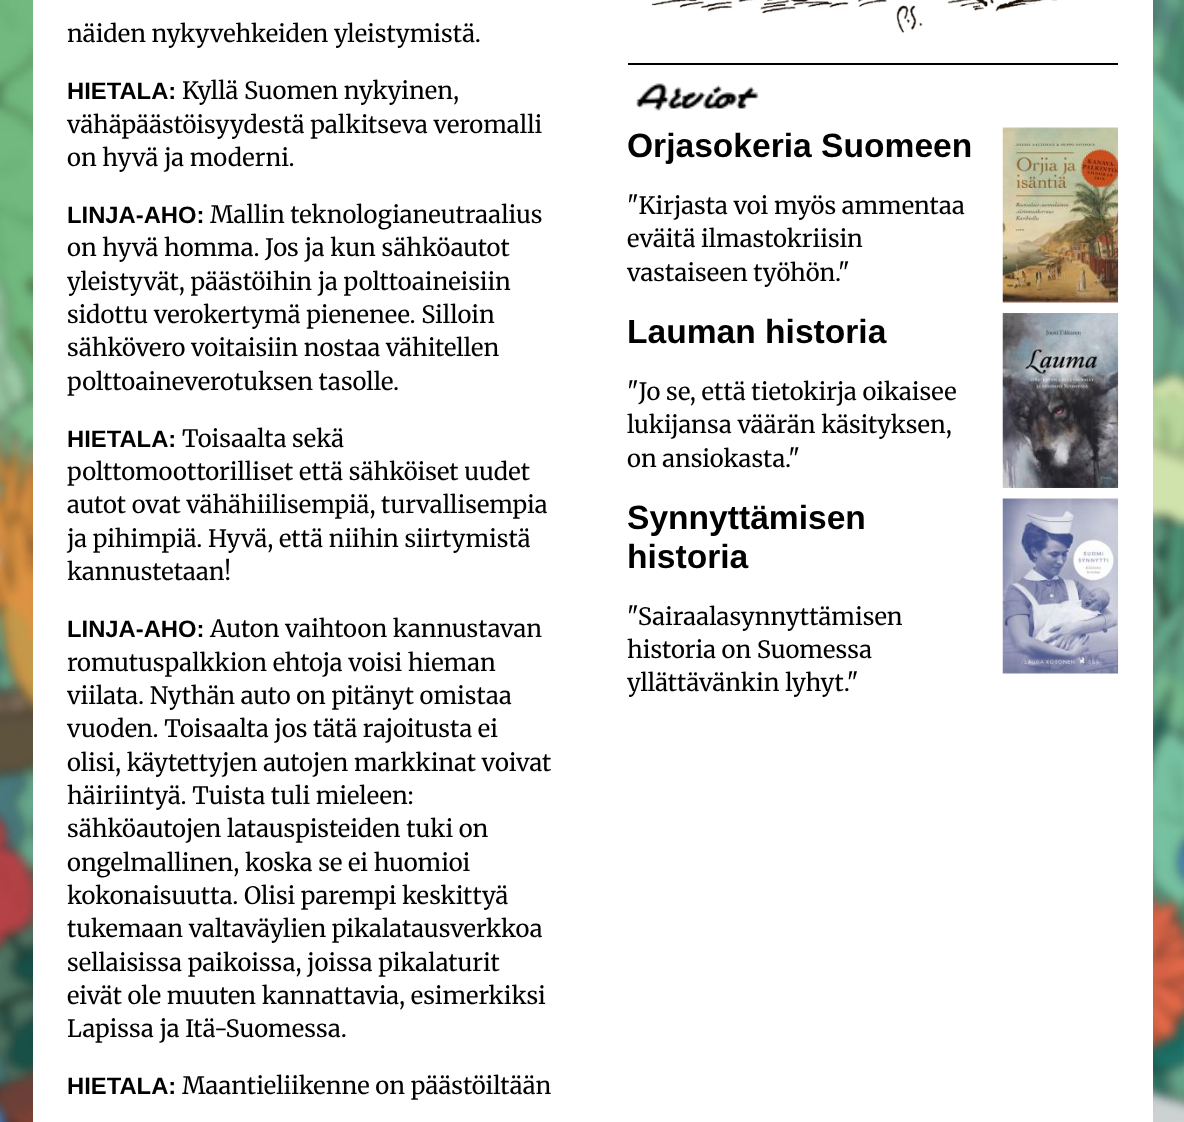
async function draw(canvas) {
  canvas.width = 1184
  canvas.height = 1122
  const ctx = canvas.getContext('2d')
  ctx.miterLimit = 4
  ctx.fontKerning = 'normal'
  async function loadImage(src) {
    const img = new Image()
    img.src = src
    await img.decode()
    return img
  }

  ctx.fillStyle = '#fff'
  ctx.fillRect(0, 0, 1184, 1122)
  ctx.drawImage(await loadImage('image0.png'), 0, 0, 1184, 1122)
  ctx.fillRect(33, 0, 1120, 1122)
  ctx.font = '23.8px Merriweather'
  ctx.fillStyle = '#000'
  ctx.fillText('näiden nykyvehkeiden yleistymistä.', 67, 42)
  ctx.font = 'bold 23.8px Liberation Sans'
  ctx.fillText('HIETALA:', 67, 99)
  ctx.font = '23.8px Merriweather'
  ctx.fillText('Kyllä Suomen nykyinen,', 182, 99)
  ctx.fillText('vähäpäästöisyydestä palkitseva veromalli', 67, 133)
  ctx.fillText('on hyvä ja moderni.', 67, 166)
  ctx.font = 'bold 23.8px Liberation Sans'
  ctx.fillText('LINJA-AHO:', 67, 223)
  ctx.font = '23.8px Merriweather'
  ctx.fillText('Mallin teknologianeutraalius', 210, 223)
  ctx.fillText('on hyvä homma. Jos ja kun sähköautot', 67, 256)
  ctx.fillText('yleistyvät, päästöihin ja polttoaineisiin', 67, 290)
  ctx.fillText('sidottu verokertymä pienenee. Silloin', 67, 323)
  ctx.fillText('sähkövero voitaisiin nostaa vähitellen', 67, 356)
  ctx.fillText('polttoaineverotuksen tasolle.', 67, 390)
  ctx.font = 'bold 23.8px Liberation Sans'
  ctx.fillText('HIETALA:', 67, 447)
  ctx.font = '23.8px Merriweather'
  ctx.fillText('Toisaalta sekä', 182, 447)
  ctx.fillText('polttomoottorilliset että sähköiset uudet', 67, 480)
  ctx.fillText('autot ovat vähähiilisempiä, turvallisempia', 67, 513)
  ctx.fillText('ja pihimpiä. Hyvä, että niihin siirtymistä', 67, 547)
  ctx.fillText('kannustetaan!', 67, 580)
  ctx.font = 'bold 23.8px Liberation Sans'
  ctx.fillText('LINJA-AHO:', 67, 637)
  ctx.font = '23.8px Merriweather'
  ctx.fillText('Auton vaihtoon kannustavan', 210, 637)
  ctx.fillText('romutuspalkkion ehtoja voisi hieman', 67, 671)
  ctx.fillText('viilata. Nythän auto on pitänyt omistaa', 67, 704)
  ctx.fillText('vuoden. Toisaalta jos tätä rajoitusta ei', 67, 737)
  ctx.fillText('olisi, käytettyjen autojen markkinat voivat', 67, 771)
  ctx.fillText('häiriintyä. Tuista tuli mieleen:', 67, 804)
  ctx.fillText('sähköautojen latauspisteiden tuki on', 67, 837)
  ctx.fillText('ongelmallinen, koska se ei huomioi', 67, 871)
  ctx.fillText('kokonaisuutta. Olisi parempi keskittyä', 67, 904)
  ctx.fillText('tukemaan valtaväylien pikalatausverkkoa', 67, 937)
  ctx.fillText('sellaisissa paikoissa, joissa pikalaturit', 67, 971)
  ctx.fillText('eivät ole muuten kannattavia, esimerkiksi', 67, 1004)
  ctx.fillText('Lapissa ja Itä-Suomessa.', 67, 1037)
  ctx.font = 'bold 23.8px Liberation Sans'
  ctx.fillText('HIETALA:', 67, 1094)
  ctx.font = '23.8px Merriweather'
  ctx.fillText('Maantieliikenne on päästöiltään', 182, 1094)
  ctx.drawImage(await loadImage('image1.png'), 651, 0, 406, 33)
  ctx.fillRect(628, 63, 490, 2)
  ctx.drawImage(await loadImage('image2.png'), 636, 83, 123, 28)
  ctx.font = 'bold 33.6px Liberation Sans'
  ctx.fillText('Orjasokeria Suomeen', 627, 157)
  ctx.drawImage(await loadImage('image3.png'), 1002, 127, 117, 176)
  ctx.font = '23.8px Merriweather'
  ctx.fillText('"Kirjasta voi myös ammentaa', 627, 214)
  ctx.fillText('eväitä ilmastokriisin', 627, 247)
  ctx.fillText('vastaiseen työhön."', 627, 281)
  ctx.font = 'bold 33.6px Liberation Sans'
  ctx.fillText('Lauman historia', 627, 343)
  ctx.drawImage(await loadImage('image4.png'), 1002, 313, 117, 175)
  ctx.font = '23.8px Merriweather'
  ctx.fillText('"Jo se, että tietokirja oikaisee', 627, 400)
  ctx.fillText('lukijansa väärän käsityksen,', 627, 433)
  ctx.fillText('on ansiokasta."', 627, 467)
  ctx.font = 'bold 33.6px Liberation Sans'
  ctx.fillText('Synnyttämisen', 627, 529)
  ctx.fillText('historia', 627, 568)
  ctx.drawImage(await loadImage('image5.png'), 1002, 498, 117, 176)
  ctx.font = '23.8px Merriweather'
  ctx.fillText('"Sairaalasynnyttämisen', 627, 625)
  ctx.fillText('historia on Suomessa', 627, 658)
  ctx.fillText('yllättävänkin lyhyt."', 627, 691)
}

draw(document.querySelector('canvas'))
